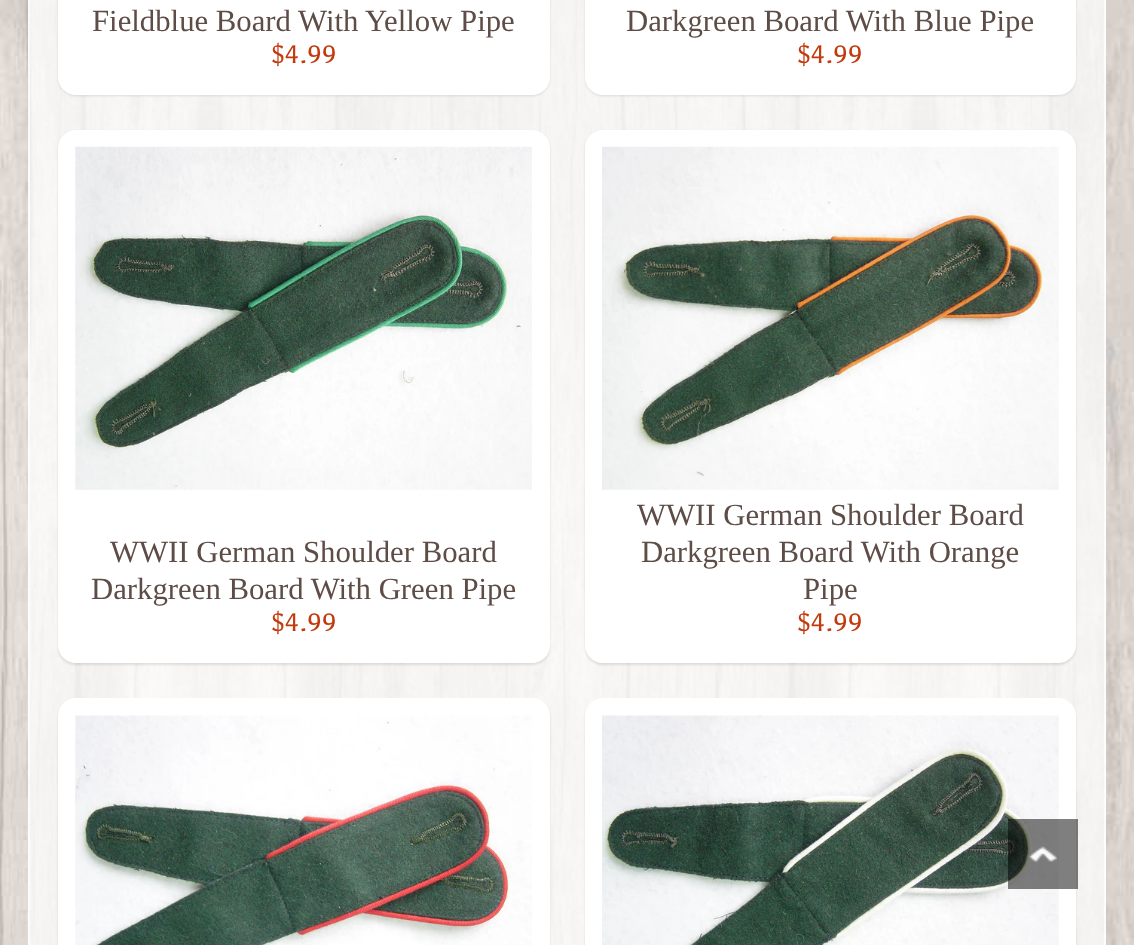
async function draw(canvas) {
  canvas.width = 1134
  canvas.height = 945
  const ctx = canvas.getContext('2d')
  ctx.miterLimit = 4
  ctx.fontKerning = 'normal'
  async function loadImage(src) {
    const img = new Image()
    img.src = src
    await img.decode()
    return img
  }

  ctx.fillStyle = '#fff'
  ctx.fillRect(0, 0, 1134, 945)
  ctx.drawImage(await loadImage('image0.png'), 0, 0, 1134, 945)
  ctx.strokeStyle = '#ffffffb3'
  ctx.lineWidth = 2
  ctx.strokeRect(29, -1, 1076, 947)
  ctx.fillStyle = '#0000001a'
  ctx.filter = 'blur(1px)'
  ctx.beginPath()
  ctx.roundRect(58, -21, 492, 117, 18)
  ctx.fill()
  ctx.filter = 'none'
  ctx.fillStyle = '#fff'
  ctx.beginPath()
  ctx.roundRect(58, -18, 492, 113, 18)
  ctx.fill()
  ctx.font = '30.75px Liberation Serif'
  ctx.fillStyle = '#5e4c46'
  ctx.fillText('Fieldblue Board With Yellow Pipe', 92, 31)
  ctx.font = '25px Asul'
  ctx.fillStyle = '#c33a0e'
  ctx.fillText('$4.99', 271, 63)
  ctx.fillStyle = '#0000001a'
  ctx.filter = 'blur(1px)'
  ctx.beginPath()
  ctx.roundRect(585, -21, 491, 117, 18)
  ctx.fill()
  ctx.filter = 'none'
  ctx.fillStyle = '#fff'
  ctx.beginPath()
  ctx.roundRect(585, -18, 491, 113, 18)
  ctx.fill()
  ctx.font = '30.75px Liberation Serif'
  ctx.fillStyle = '#5e4c46'
  ctx.fillText('Darkgreen Board With Blue Pipe', 626, 31)
  ctx.font = '25px Asul'
  ctx.fillStyle = '#c33a0e'
  ctx.fillText('$4.99', 797, 63)
  ctx.fillStyle = '#0000001a'
  ctx.filter = 'blur(1px)'
  ctx.beginPath()
  ctx.roundRect(58, 131, 492, 534, 18)
  ctx.fill()
  ctx.filter = 'none'
  ctx.fillStyle = '#fff'
  ctx.beginPath()
  ctx.roundRect(58, 130, 492, 533, 18)
  ctx.fill()
  ctx.drawImage(await loadImage('image1.png'), 75, 146, 457, 344)
  ctx.font = '30.75px Liberation Serif'
  ctx.fillStyle = '#5e4c46'
  ctx.fillText('WWII German Shoulder Board', 110, 562)
  ctx.fillText('Darkgreen Board With Green Pipe', 91, 599)
  ctx.font = '25px Asul'
  ctx.fillStyle = '#c33a0e'
  ctx.fillText('$4.99', 271, 631)
  ctx.fillStyle = '#0000001a'
  ctx.filter = 'blur(1px)'
  ctx.beginPath()
  ctx.roundRect(585, 131, 491, 534, 18)
  ctx.fill()
  ctx.filter = 'none'
  ctx.fillStyle = '#fff'
  ctx.beginPath()
  ctx.roundRect(585, 130, 491, 533, 18)
  ctx.fill()
  ctx.drawImage(await loadImage('image2.png'), 602, 146, 457, 344)
  ctx.font = '30.75px Liberation Serif'
  ctx.fillStyle = '#5e4c46'
  ctx.fillText('WWII German Shoulder Board', 637, 525)
  ctx.fillText('Darkgreen Board With Orange', 641, 562)
  ctx.fillText('Pipe', 803, 599)
  ctx.font = '25px Asul'
  ctx.fillStyle = '#c33a0e'
  ctx.fillText('$4.99', 797, 631)
  ctx.fillStyle = '#0000001a'
  ctx.filter = 'blur(1px)'
  ctx.beginPath()
  ctx.roundRect(58, 700, 492, 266, 18)
  ctx.fill()
  ctx.filter = 'none'
  ctx.fillStyle = '#fff'
  ctx.beginPath()
  ctx.roundRect(58, 698, 492, 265, 18)
  ctx.fill()
  ctx.drawImage(await loadImage('image3.png'), 75, 715, 457, 230)
  ctx.fillStyle = '#0000001a'
  ctx.filter = 'blur(1px)'
  ctx.beginPath()
  ctx.roundRect(585, 700, 491, 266, 18)
  ctx.fill()
  ctx.filter = 'none'
  ctx.fillStyle = '#fff'
  ctx.beginPath()
  ctx.roundRect(585, 698, 491, 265, 18)
  ctx.fill()
  ctx.drawImage(await loadImage('image4.png'), 602, 715, 457, 230)
  ctx.drawImage(await loadImage('image5.png'), 1008, 819, 70, 70)
}

draw(document.querySelector('canvas'))
